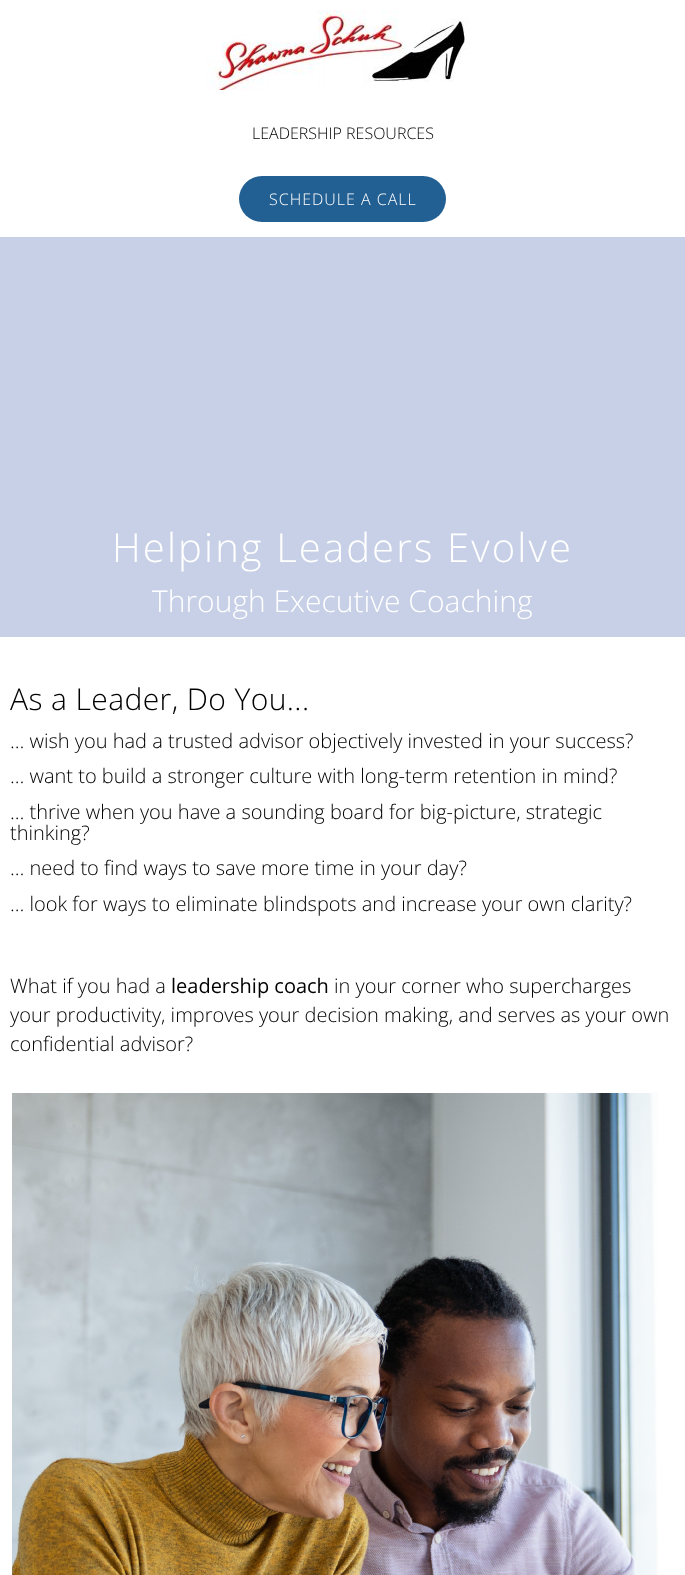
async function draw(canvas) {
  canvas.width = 685
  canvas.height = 1575
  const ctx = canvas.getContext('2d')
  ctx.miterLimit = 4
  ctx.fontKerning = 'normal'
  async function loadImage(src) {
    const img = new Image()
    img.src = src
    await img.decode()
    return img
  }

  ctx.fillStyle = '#fff'
  ctx.fillRect(0, 0, 685, 1575)
  ctx.drawImage(await loadImage('image0.png'), 206, 10, 264, 80)
  ctx.font = '300 16px Open Sans'
  ctx.fillStyle = '#000'
  ctx.fillText('LEADERSHIP RESOURCES', 252, 139)
  ctx.fillStyle = '#225f93'
  ctx.beginPath()
  ctx.roundRect(239, 176, 207, 46, 23)
  ctx.fill()
  ctx.letterSpacing = '1px'
  ctx.fillStyle = '#fff'
  ctx.fillText('SCHEDULE A CALL', 269, 205)
  ctx.fillStyle = '#c7d0e6'
  ctx.fillRect(0, 237, 685, 400)
  ctx.letterSpacing = '2.1px'
  ctx.font = '300 40px Open Sans'
  ctx.fillStyle = '#fff'
  ctx.fillText('Helping Leaders Evolve', 112, 562)
  ctx.letterSpacing = '0px'
  ctx.font = '300 30px Open Sans'
  ctx.fillText('Through Executive Coaching', 152, 612)
  ctx.letterSpacing = '0.4px'
  ctx.fillStyle = '#000'
  ctx.fillText('As a Leader, Do You...', 10, 710)
  ctx.letterSpacing = '0px'
  ctx.font = '300 20px Open Sans'
  ctx.fillText('… wish you had a trusted advisor objectively invested in your success?', 10, 748)
  ctx.fillText('… want to build a stronger culture with long-term retention in mind?', 10, 783)
  ctx.fillText('… thrive when you have a sounding board for big-picture, strategic', 10, 819)
  ctx.fillText('thinking?', 10, 840)
  ctx.fillText('… need to find ways to save more time in your day?', 10, 875)
  ctx.fillText('… look for ways to eliminate blindspots and increase your own clarity?', 10, 911)
  ctx.fillText('What if you had a', 10, 993)
  ctx.font = '20px Open Sans'
  ctx.fillText('leadership coach', 171, 993)
  ctx.font = '300 20px Open Sans'
  ctx.fillText('in your corner who supercharges', 334, 993)
  ctx.fillText('your productivity, improves your decision making, and serves as your own', 10, 1022)
  ctx.fillText('confidential advisor?', 10, 1051)
  ctx.drawImage(await loadImage('image1.png'), 12, 1093, 646, 482)
}

draw(document.querySelector('canvas'))
